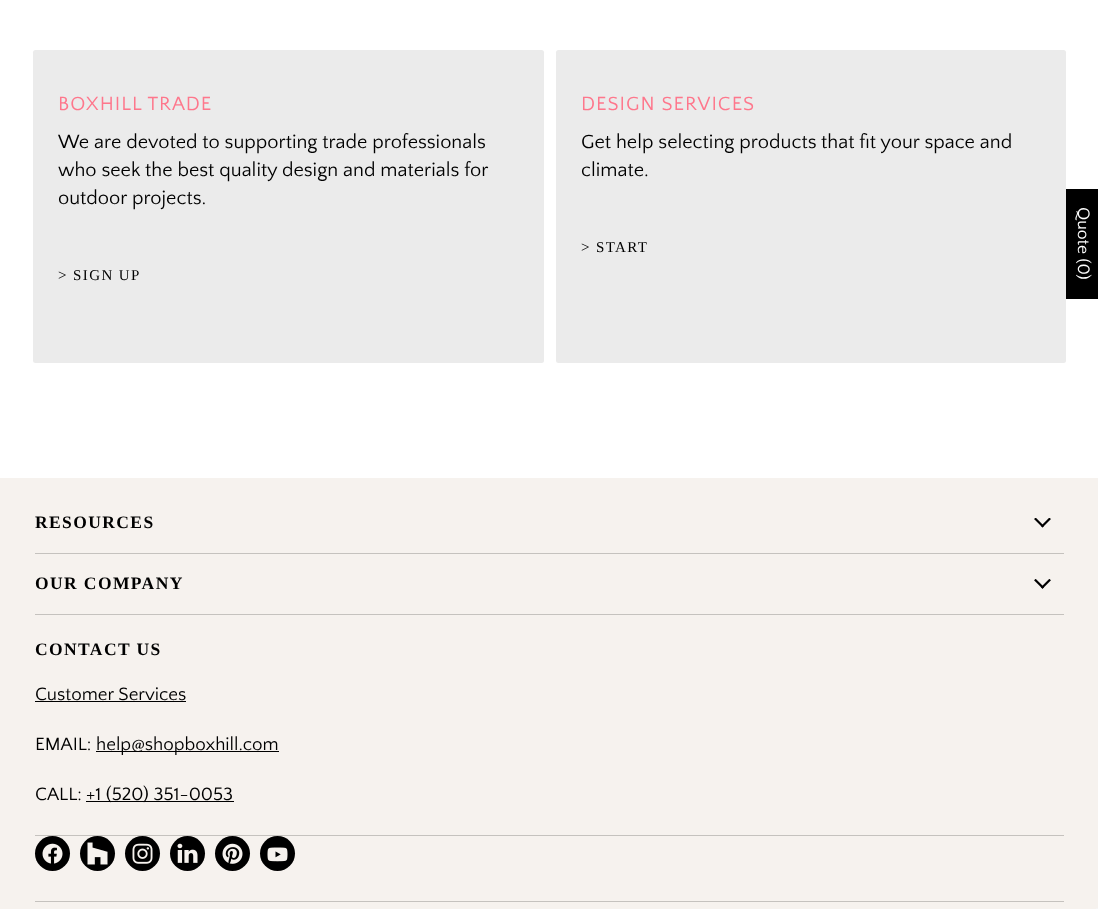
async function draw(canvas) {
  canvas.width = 1098
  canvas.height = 909
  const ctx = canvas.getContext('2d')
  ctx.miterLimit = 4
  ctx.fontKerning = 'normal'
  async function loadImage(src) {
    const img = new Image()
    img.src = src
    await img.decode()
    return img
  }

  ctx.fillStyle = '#fff'
  ctx.fillRect(0, 0, 1098, 909)
  ctx.fillStyle = '#ebebeb'
  ctx.beginPath()
  ctx.roundRect(33, 50, 511, 313, 2.5)
  ctx.fill()
  ctx.letterSpacing = '1px'
  ctx.font = '20px Quattrocento Sans'
  ctx.fillStyle = '#fe778c'
  ctx.fillText('BOXHILL TRADE', 58, 110)
  ctx.letterSpacing = '0px'
  ctx.fillStyle = '#000'
  ctx.fillText('We are devoted to supporting trade professionals', 58, 148)
  ctx.fillText('who seek the best quality design and materials for', 58, 176)
  ctx.fillText('outdoor projects.', 58, 204)
  ctx.letterSpacing = '1.4px'
  ctx.font = '15px Liberation Serif'
  ctx.fillText('> SIGN UP', 58, 280)
  ctx.fillStyle = '#ebebeb'
  ctx.beginPath()
  ctx.roundRect(556, 50, 510, 313, 2.5)
  ctx.fill()
  ctx.letterSpacing = '1px'
  ctx.font = '20px Quattrocento Sans'
  ctx.fillStyle = '#fe778c'
  ctx.fillText('DESIGN SERVICES', 581, 110)
  ctx.letterSpacing = '0px'
  ctx.fillStyle = '#000'
  ctx.fillText('Get help selecting products that fit your space and', 581, 148)
  ctx.fillText('climate.', 581, 176)
  ctx.letterSpacing = '1.4px'
  ctx.font = '15px Liberation Serif'
  ctx.fillText('> START', 581, 252)
  ctx.fillRect(1066, 189, 32, 110)
  ctx.letterSpacing = '0px'
  ctx.font = '17.5px Quattrocento Sans'
  ctx.fillStyle = '#fff'
  ctx.save()
  ctx.translate(1078, 207)
  ctx.rotate(90 * Math.PI / 180)
  ctx.fillText('Quote (0)', 0, 0)
  ctx.restore()
  ctx.fillStyle = '#f6f2ee'
  ctx.fillRect(0, 478, 1098, 431)
  ctx.fillStyle = '#c5c2be'
  ctx.fillRect(35, 553, 1029, 1)
  ctx.letterSpacing = '1.4px'
  ctx.font = 'bold 17.5px Liberation Serif'
  ctx.fillStyle = '#000'
  ctx.fillText('RESOURCES', 35, 528)
  ctx.drawImage(await loadImage('image0.png'), 1034, 518, 17, 10)
  ctx.fillStyle = '#c5c2be'
  ctx.fillRect(35, 614, 1029, 1)
  ctx.fillStyle = '#000'
  ctx.fillText('OUR COMPANY', 35, 589)
  ctx.drawImage(await loadImage('image1.png'), 1034, 579, 17, 10)
  ctx.fillStyle = '#c5c2be'
  ctx.fillRect(35, 835, 1029, 1)
  ctx.fillStyle = '#000'
  ctx.fillText('CONTACT US', 35, 655)
  ctx.letterSpacing = '0px'
  ctx.font = '18.75px Quattrocento Sans'
  ctx.fillText('Customer Services', 35, 700)
  ctx.fillRect(35, 701, 151, 1)
  ctx.fillText('EMAIL:', 35, 750)
  ctx.fillRect(96, 751, 183, 1)
  ctx.fillText('help@shopboxhill.com', 96, 750)
  ctx.fillText('CALL:', 35, 800)
  ctx.fillRect(86, 801, 148, 1)
  ctx.fillText('+1 (520) 351-0053', 86, 800)
  ctx.fillStyle = '#c5c2be'
  ctx.fillRect(35, 901, 1029, 1)
  ctx.fillStyle = '#000'
  ctx.beginPath()
  ctx.arc(52.5, 853.5, 17.5, 0, 2 * Math.PI)
  ctx.fill()
  ctx.drawImage(await loadImage('image2.png'), 42, 843, 21, 21)
  ctx.beginPath()
  ctx.arc(97.5, 853.5, 17.5, 0, 2 * Math.PI)
  ctx.fill()
  ctx.drawImage(await loadImage('image3.png'), 87, 842, 21, 23)
  ctx.beginPath()
  ctx.arc(142.5, 853.5, 17.5, 0, 2 * Math.PI)
  ctx.fill()
  ctx.drawImage(await loadImage('image4.png'), 132, 843, 21, 21)
  ctx.beginPath()
  ctx.arc(187.5, 853.5, 17.5, 0, 2 * Math.PI)
  ctx.fill()
  ctx.drawImage(await loadImage('image5.png'), 177, 843, 21, 20)
  ctx.beginPath()
  ctx.arc(232.5, 853.5, 17.5, 0, 2 * Math.PI)
  ctx.fill()
  ctx.drawImage(await loadImage('image6.png'), 222, 843, 21, 21)
  ctx.beginPath()
  ctx.arc(277.5, 853.5, 17.5, 0, 2 * Math.PI)
  ctx.fill()
  ctx.drawImage(await loadImage('image7.png'), 267, 847, 21, 15)
  ctx.fillStyle = '#f5f5f5'
  ctx.fillRect(1096, 908, 2, 1)
}

draw(document.querySelector('canvas'))
